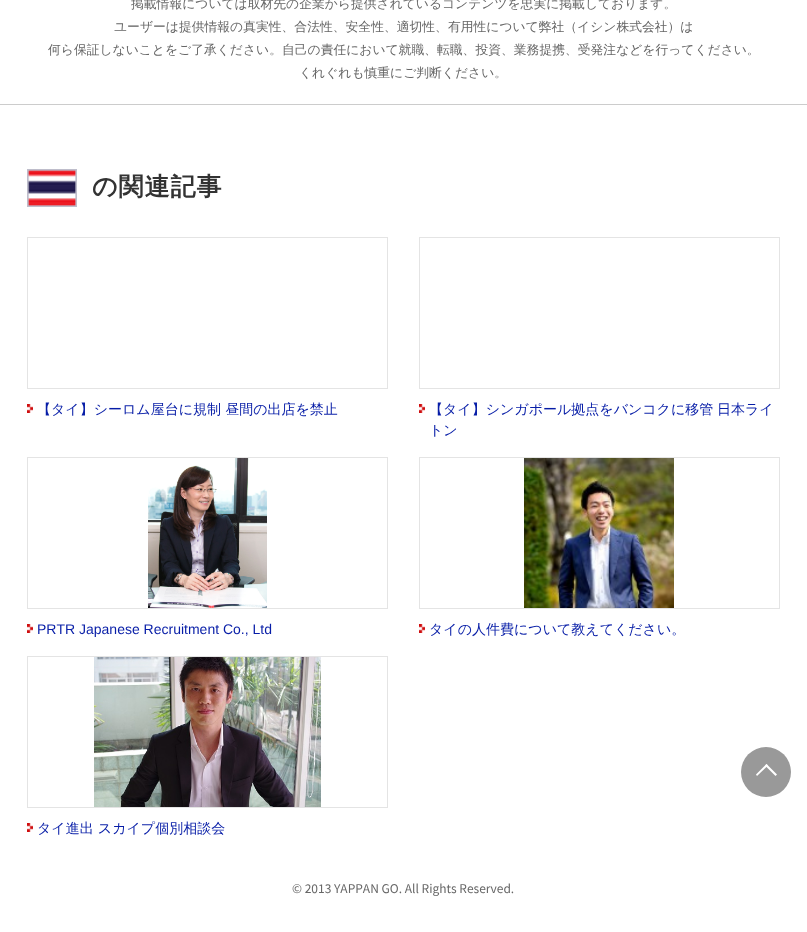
async function draw(canvas) {
  canvas.width = 807
  canvas.height = 932
  const ctx = canvas.getContext('2d')
  ctx.miterLimit = 4
  ctx.fontKerning = 'none'
  async function loadImage(src) {
    const img = new Image()
    img.src = src
    await img.decode()
    return img
  }

  ctx.fillStyle = '#fff'
  ctx.fillRect(0, 0, 807, 932)
  ctx.fillStyle = '#ccc'
  ctx.fillRect(0, 104, 807, 1)
  ctx.font = '500 12.8px WenQuanYi Zen Hei'
  ctx.fillStyle = '#666'
  ctx.fillText('掲載情報については取材先の企業から提供されているコンテンツを忠実に掲載しております。', 131, 8)
  ctx.fillText('ユーザーは提供情報の真実性、合法性、安全性、適切性、有用性について弊社（イシン株式会社）は', 114, 31)
  ctx.fillText('何ら保証しないことをご了承ください。自己の責任において就職、転職、投資、業務提携、受発注などを行ってください。', 48, 54)
  ctx.fillText('くれぐれも慎重にご判断ください。', 299, 77)
  ctx.drawImage(await loadImage('image0.png'), 27, 169, 50, 38)
  ctx.letterSpacing = '1px'
  ctx.font = 'bold 25px WenQuanYi Zen Hei'
  ctx.fillStyle = '#333'
  ctx.fillText('の関連記事', 92, 195)
  ctx.strokeStyle = '#e4e4e4'
  ctx.strokeRect(27.5, 237.5, 360, 151)
  ctx.drawImage(await loadImage('image1.png'), 27, 404, 6, 9)
  ctx.letterSpacing = '0px'
  ctx.font = '500 14px WenQuanYi Zen Hei'
  ctx.fillStyle = '#071da7'
  ctx.fillText('【タイ】シーロム屋台に規制 昼間の出店を禁止', 37, 414)
  ctx.strokeRect(419.5, 237.5, 360, 151)
  ctx.drawImage(await loadImage('image1.png'), 419, 404, 6, 9)
  ctx.fillText('【タイ】シンガポール拠点をバンコクに移管', 429, 414)
  ctx.fillText('日本ライ', 717, 414)
  ctx.fillText('トン', 429, 435)
  ctx.strokeRect(27.5, 457.5, 360, 151)
  ctx.drawImage(await loadImage('image2.png'), 148, 458, 119, 150)
  ctx.drawImage(await loadImage('image1.png'), 27, 624, 6, 9)
  ctx.font = '14px Liberation Sans'
  ctx.fillText('PRTR Japanese Recruitment Co., Ltd', 37, 634)
  ctx.strokeRect(419.5, 457.5, 360, 151)
  ctx.drawImage(await loadImage('image3.png'), 524, 458, 150, 150)
  ctx.drawImage(await loadImage('image1.png'), 419, 624, 6, 9)
  ctx.font = '500 14px WenQuanYi Zen Hei'
  ctx.fillText('タイの人件費について教えてください。', 429, 634)
  ctx.strokeRect(27.5, 656.5, 360, 151)
  ctx.drawImage(await loadImage('image4.png'), 94, 657, 227, 150)
  ctx.drawImage(await loadImage('image1.png'), 27, 823, 6, 9)
  ctx.fillText('タイ進出 スカイプ個別相談会', 37, 833)
  ctx.fillStyle = '#999'
  ctx.beginPath()
  ctx.arc(766, 772, 25, 0, 2 * Math.PI)
  ctx.fill()
  ctx.fillStyle = '#fff'
  ctx.beginPath()
  ctx.moveTo(756, 774.5)
  ctx.lineTo(766.5, 764)
  ctx.lineTo(768, 765.5)
  ctx.lineTo(757, 776)
  ctx.closePath()
  ctx.fill()
  ctx.beginPath()
  ctx.moveTo(765, 765.5)
  ctx.lineTo(766.5, 764)
  ctx.lineTo(777, 774.5)
  ctx.lineTo(775.5, 776)
  ctx.closePath()
  ctx.fill()
  ctx.font = '12px Noto Sans JP'
  ctx.fillStyle = '#666'
  ctx.fillText('© 2013 YAPPAN GO. All Rights Reserved.', 292, 893)
}

draw(document.querySelector('canvas'))
